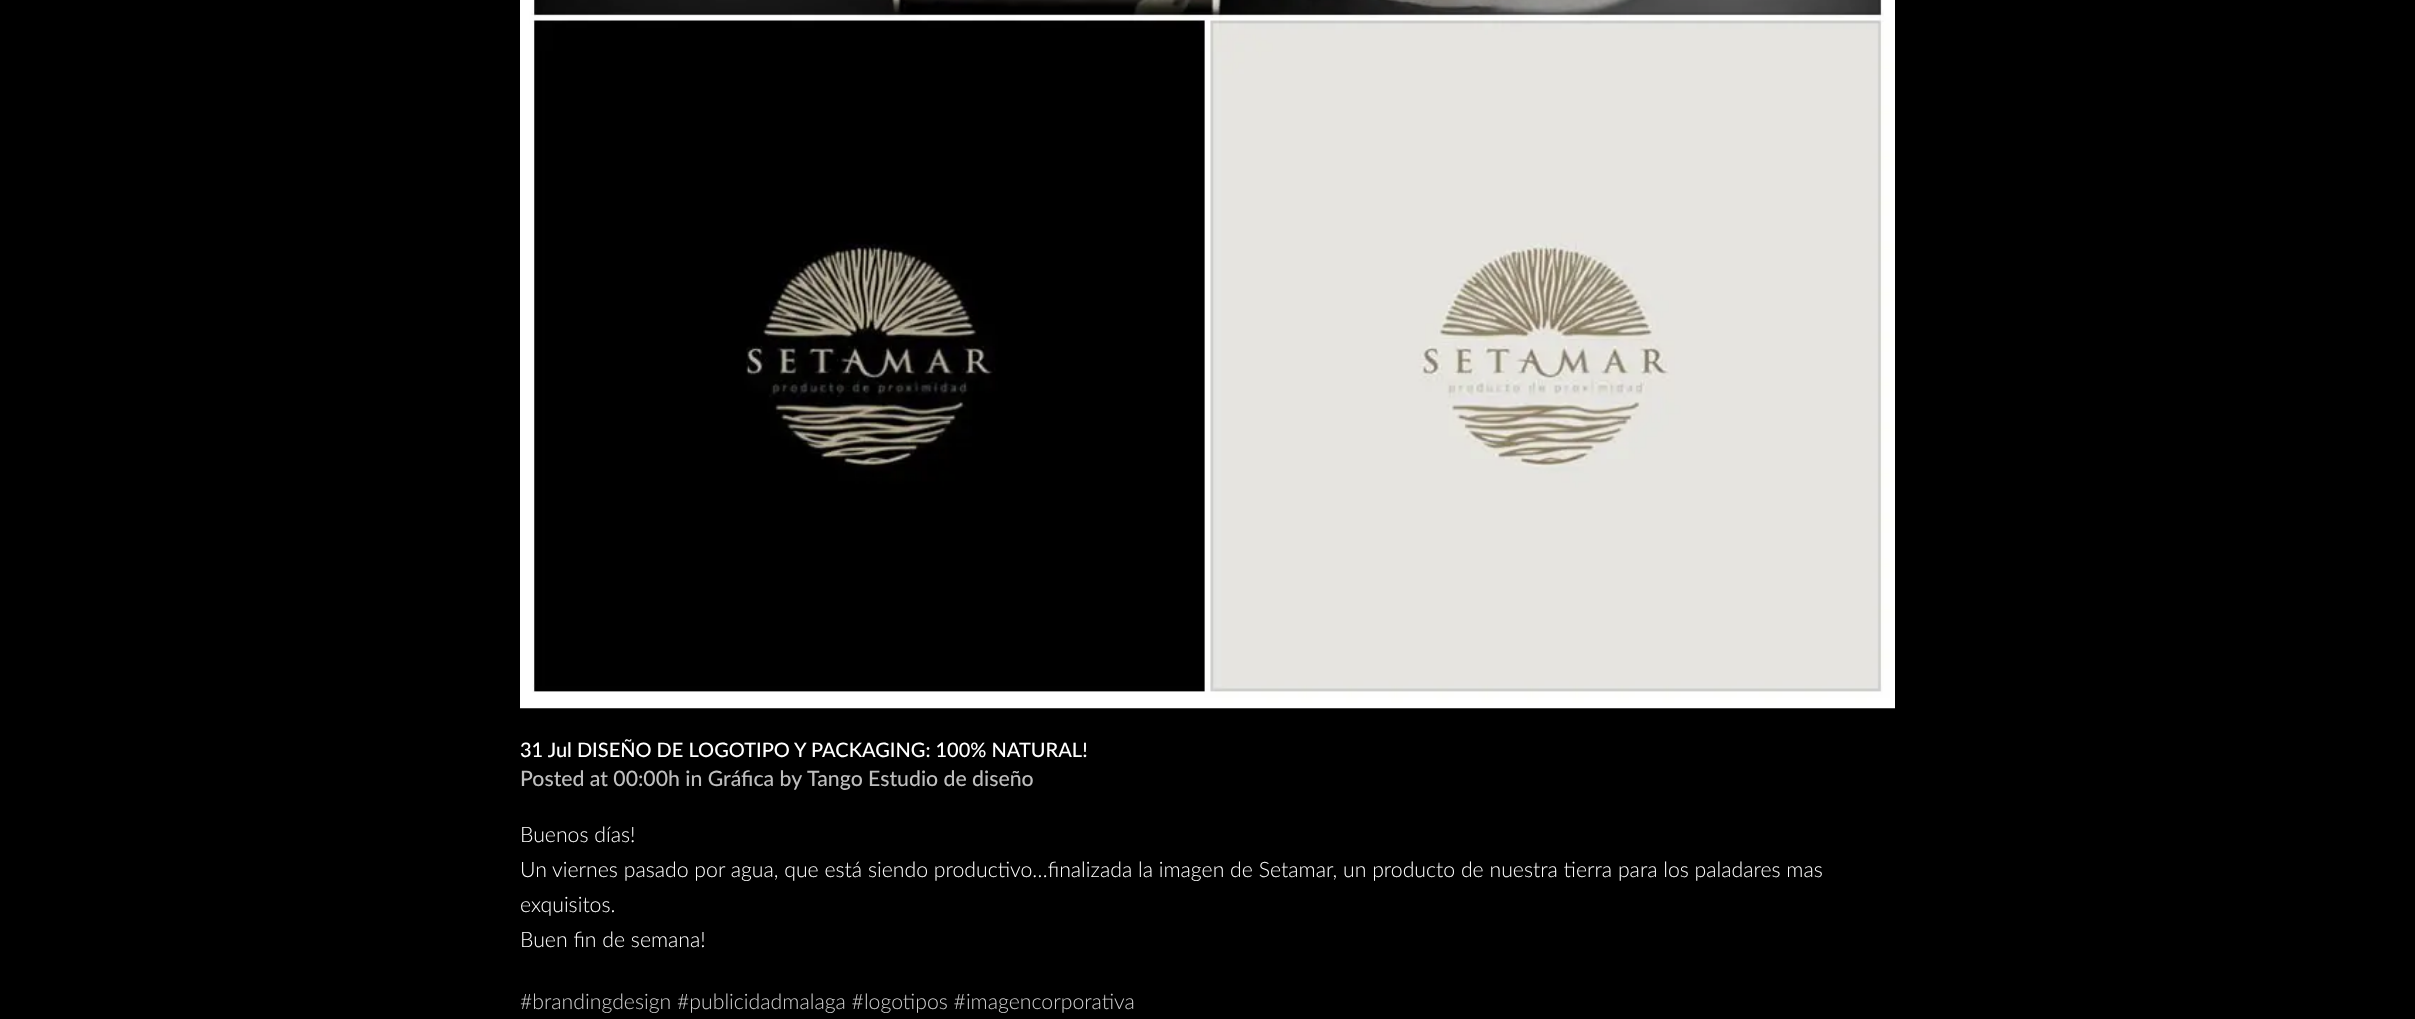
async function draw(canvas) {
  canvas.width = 2415
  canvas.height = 1019
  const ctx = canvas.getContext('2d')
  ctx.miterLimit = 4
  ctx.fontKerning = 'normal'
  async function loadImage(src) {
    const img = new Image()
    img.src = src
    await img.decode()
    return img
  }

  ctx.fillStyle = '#000'
  ctx.fillRect(0, 0, 2415, 1019)
  ctx.drawImage(await loadImage('image0.png'), 520, 0, 1375, 709)
  ctx.font = '500 20px Lato'
  ctx.fillStyle = '#fff'
  ctx.fillText('31 Jul DISEÑO DE LOGOTIPO Y PACKAGING: 100% NATURAL!', 520, 757)
  ctx.font = '500 21.25px Lato'
  ctx.fillStyle = '#bebebe'
  ctx.fillText('Posted at 00:00h in Gráfica by', 520, 786)
  ctx.fillText('Tango Estudio de diseño', 807, 786)
  ctx.font = '300 21.25px Lato'
  ctx.fillStyle = '#fff'
  ctx.fillText('Buenos días!', 520, 842)
  ctx.fillText('Un viernes pasado por agua, que está siendo productivo…finalizada la imagen de Setamar, un producto de nuestra tierra para los paladares mas', 520, 877)
  ctx.fillText('exquisitos.', 520, 912)
  ctx.fillText('Buen fin de semana!', 520, 947)
  ctx.fillStyle = '#cecece'
  ctx.fillText('#brandingdesign #publicidadmalaga #logotipos #imagencorporativa', 520, 1009)
}

draw(document.querySelector('canvas'))
